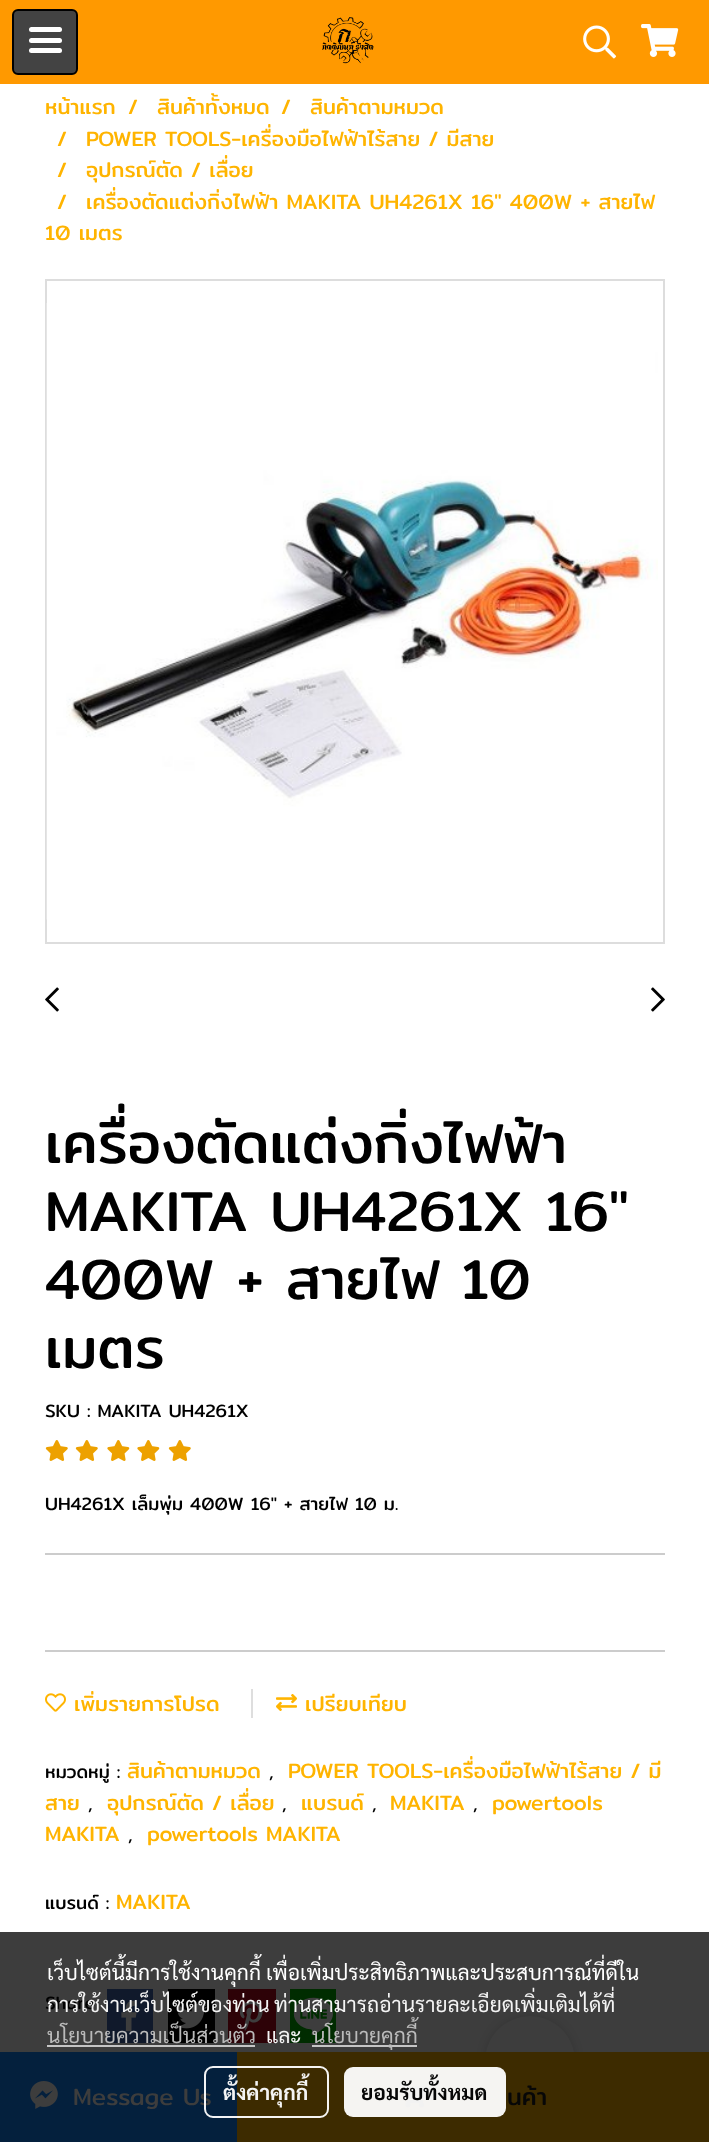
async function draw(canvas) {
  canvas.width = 709
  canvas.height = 2142
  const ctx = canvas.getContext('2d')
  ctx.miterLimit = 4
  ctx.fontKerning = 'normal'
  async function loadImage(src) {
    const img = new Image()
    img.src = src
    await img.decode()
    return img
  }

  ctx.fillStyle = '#fff'
  ctx.fillRect(0, 0, 709, 2142)
  ctx.fillStyle = '#3d3d3d'
  ctx.fillRect(0, 1932, 709, 120)
  ctx.fillStyle = '#f90'
  ctx.fillRect(0, 0, 709, 84)
  ctx.fillStyle = '#434343'
  ctx.beginPath()
  ctx.roundRect(13, 10, 64, 64, 5)
  ctx.fill()
  ctx.strokeStyle = '#000'
  ctx.lineWidth = 2
  ctx.stroke()
  ctx.fillStyle = '#fff'
  ctx.beginPath()
  ctx.roundRect(29, 38, 33, 5, 2.5)
  ctx.fill()
  ctx.beginPath()
  ctx.roundRect(29, 27, 33, 5, 2.5)
  ctx.fill()
  ctx.beginPath()
  ctx.roundRect(29, 48, 33, 5, 2.5)
  ctx.fill()
  ctx.drawImage(await loadImage('image0.png'), 322, 17, 52, 47)
  ctx.drawImage(await loadImage('image1.png'), 583, 25, 34, 34)
  ctx.drawImage(await loadImage('image2.png'), 641, 24, 38, 33)
  ctx.font = '21px Mitr'
  ctx.fillStyle = '#ffb400'
  ctx.fillText('หน้าแรก', 45, 114)
  ctx.fillText('/', 128, 114)
  ctx.fillText('สินค้าทั้งหมด', 157, 114)
  ctx.fillText('/', 281, 114)
  ctx.fillText('สินค้าตามหมวด', 310, 114)
  ctx.fillText('/', 57, 146)
  ctx.fillText('POWER TOOLS-เครื่องมือไฟฟ้าไร้สาย / มีสาย', 86, 146)
  ctx.fillText('/', 57, 177)
  ctx.fillText('อุปกรณ์ตัด / เลื่อย', 86, 177)
  ctx.fillText('/', 57, 209)
  ctx.fillText('เครื่องตัดแต่งกิ่งไฟฟ้า MAKITA UH4261X 16" 400W + สายไฟ', 86, 209)
  ctx.fillText('10 เมตร', 45, 240)
  ctx.strokeStyle = '#ddd'
  ctx.strokeRect(46, 280, 618, 663)
  ctx.drawImage(await loadImage('image3.png'), 46, 303, 612, 617)
  ctx.drawImage(await loadImage('image4.png'), 45, 987, 14, 25)
  ctx.drawImage(await loadImage('image5.png'), 651, 987, 14, 25)
  ctx.font = '57px Mitr'
  ctx.fillStyle = '#000'
  ctx.fillText('เครื่องตัดแต่งกิ่งไฟฟ้า', 45, 1163)
  ctx.fillText('MAKITA UH4261X 16"', 45, 1231)
  ctx.fillText('400W + สายไฟ 10', 45, 1299)
  ctx.fillText('เมตร', 45, 1368)
  ctx.font = '18px Mitr'
  ctx.fillText('SKU : MAKITA UH4261X', 45, 1417)
  ctx.drawImage(await loadImage('image6.png'), 45, 1440, 23, 21)
  ctx.drawImage(await loadImage('image6.png'), 75, 1440, 23, 21)
  ctx.drawImage(await loadImage('image7.png'), 107, 1440, 23, 21)
  ctx.drawImage(await loadImage('image7.png'), 137, 1440, 23, 21)
  ctx.drawImage(await loadImage('image6.png'), 168, 1440, 23, 21)
  ctx.fillText('UH4261X เล็มพุ่ม 400W 16" + สายไฟ 10 ม.', 45, 1510)
  ctx.fillStyle = '#ccc'
  ctx.fillRect(45, 1553, 620, 2)
  ctx.fillRect(45, 1650, 620, 2)
  ctx.drawImage(await loadImage('image8.png'), 45, 1693, 21, 19)
  ctx.font = '21px Mitr'
  ctx.fillStyle = '#ffb400'
  ctx.fillText('เพิ่มรายการโปรด', 74, 1711)
  ctx.fillStyle = '#dedede'
  ctx.fillRect(251, 1689, 2, 29)
  ctx.drawImage(await loadImage('image9.png'), 276, 1694, 21, 17)
  ctx.fillStyle = '#ffb400'
  ctx.fillText('เปรียบเทียบ', 305, 1711)
  ctx.font = '18px Mitr'
  ctx.fillStyle = '#000'
  ctx.fillText('หมวดหมู่ :', 45, 1778)
  ctx.font = '21px Mitr'
  ctx.fillStyle = '#ffb400'
  ctx.fillText('สินค้าตามหมวด', 127, 1778)
  ctx.font = '18px Mitr'
  ctx.fillStyle = '#000'
  ctx.fillText(',', 269, 1778)
  ctx.font = '21px Mitr'
  ctx.fillStyle = '#ffb400'
  ctx.fillText('POWER TOOLS-เครื่องมือไฟฟ้าไร้สาย / มี', 288, 1778)
  ctx.fillText('สาย', 45, 1810)
  ctx.font = '18px Mitr'
  ctx.fillStyle = '#000'
  ctx.fillText(',', 88, 1810)
  ctx.font = '21px Mitr'
  ctx.fillStyle = '#ffb400'
  ctx.fillText('อุปกรณ์ตัด / เลื่อย', 107, 1810)
  ctx.font = '18px Mitr'
  ctx.fillStyle = '#000'
  ctx.fillText(',', 282, 1810)
  ctx.font = '21px Mitr'
  ctx.fillStyle = '#ffb400'
  ctx.fillText('แบรนด์', 301, 1810)
  ctx.font = '18px Mitr'
  ctx.fillStyle = '#000'
  ctx.fillText(',', 372, 1810)
  ctx.font = '21px Mitr'
  ctx.fillStyle = '#ffb400'
  ctx.fillText('MAKITA', 390, 1810)
  ctx.font = '18px Mitr'
  ctx.fillStyle = '#000'
  ctx.fillText(',', 473, 1810)
  ctx.font = '21px Mitr'
  ctx.fillStyle = '#ffb400'
  ctx.fillText('powertools', 492, 1810)
  ctx.fillText('MAKITA', 45, 1841)
  ctx.font = '18px Mitr'
  ctx.fillStyle = '#000'
  ctx.fillText(',', 128, 1841)
  ctx.font = '21px Mitr'
  ctx.fillStyle = '#ffb400'
  ctx.fillText('powertools MAKITA', 147, 1841)
  ctx.font = '18px Mitr'
  ctx.fillStyle = '#000'
  ctx.fillText('แบรนด์ :', 45, 1909)
  ctx.font = '21px Mitr'
  ctx.fillStyle = '#ffb400'
  ctx.fillText('MAKITA', 116, 1909)
  ctx.font = '18px Mitr'
  ctx.fillStyle = '#000'
  ctx.fillText('Share', 45, 2009)
  ctx.fillStyle = '#10192b'
  ctx.fillRect(107, 1989, 46, 54)
  ctx.drawImage(await loadImage('image10.png'), 121, 2000, 16, 32)
  ctx.fillStyle = '#000'
  ctx.fillRect(168, 1989, 47, 54)
  ctx.drawImage(await loadImage('image11.png'), 177, 2003, 30, 26)
  ctx.fillStyle = '#2d0207'
  ctx.fillRect(228, 1989, 48, 54)
  ctx.drawImage(await loadImage('image12.png'), 239, 2001, 24, 30)
  ctx.fillStyle = '#002c00'
  ctx.fillRect(290, 1989, 46, 54)
  ctx.drawImage(await loadImage('image13.png'), 293, 1997, 40, 38)
  ctx.fillStyle = '#04203d'
  ctx.fillRect(0, 2052, 237, 90)
  ctx.drawImage(await loadImage('image14.png'), 30, 2081, 28, 28)
  ctx.font = '24px Mitr'
  ctx.fillStyle = '#3d3d3d'
  ctx.fillText('Message Us', 73, 2105)
  ctx.fillStyle = '#00000024'
  ctx.filter = 'blur(5px)'
  ctx.beginPath()
  ctx.roundRect(485, 2016, 90, 90, 45)
  ctx.fill()
  ctx.filter = 'none'
  ctx.fillStyle = '#3d3d3d'
  ctx.beginPath()
  ctx.arc(530, 2061, 45, 0, 2 * Math.PI)
  ctx.fill()
  ctx.fillStyle = '#3d2b00'
  ctx.fillRect(237, 2052, 472, 90)
  ctx.drawImage(await loadImage('image15.png'), 399, 2083, 27, 25)
  ctx.fillStyle = '#070707'
  ctx.fillText('นค้า', 507, 2105)
  ctx.font = '21px Sarabun'
  ctx.fillStyle = '#fff'
  ctx.fillText('เว็บไซต์นี้มีการใช้งานคุกกี้ เพื่อเพิ่มประสิทธิภาพและประสบการณ์ที่ดีใน', 47, 1980)
  ctx.fillStyle = '#f4f4f4'
  ctx.fillText('การใช้งานเว็บไซต์ของท่าน', 47, 2012)
  ctx.fillText('ท่านสามารถอ่านรายละเอียดเพิ่มเติมได้ที่', 274, 2012)
  ctx.fillStyle = '#bababa'
  ctx.fillText('นโยบายความเป็นส่วนตัว', 47, 2043)
  ctx.fillStyle = '#c5c5c5'
  ctx.fillRect(47, 2045, 208, 2)
  ctx.fillStyle = '#f4f4f4'
  ctx.fillText('และ', 266, 2043)
  ctx.fillStyle = '#c5c5c5'
  ctx.fillRect(312, 2045, 105, 2)
  ctx.fillStyle = '#bababa'
  ctx.fillText('นโยบายคุกกี้', 312, 2043)
  ctx.beginPath()
  ctx.roundRect(205, 2067, 123, 50, 8)
  ctx.strokeStyle = '#fffffff2'
  ctx.stroke()
  ctx.font = 'bold 21px Sarabun'
  ctx.fillStyle = '#f4f4f4'
  ctx.fillText('ตั้งค่าคุกกี้', 223, 2100)
  ctx.fillStyle = '#fffffff2'
  ctx.beginPath()
  ctx.roundRect(344, 2067, 162, 50, 9)
  ctx.fill()
  ctx.fillStyle = '#070707'
  ctx.fillText('ยอมรับทั้งหมด', 361, 2100)
}

draw(document.querySelector('canvas'))
